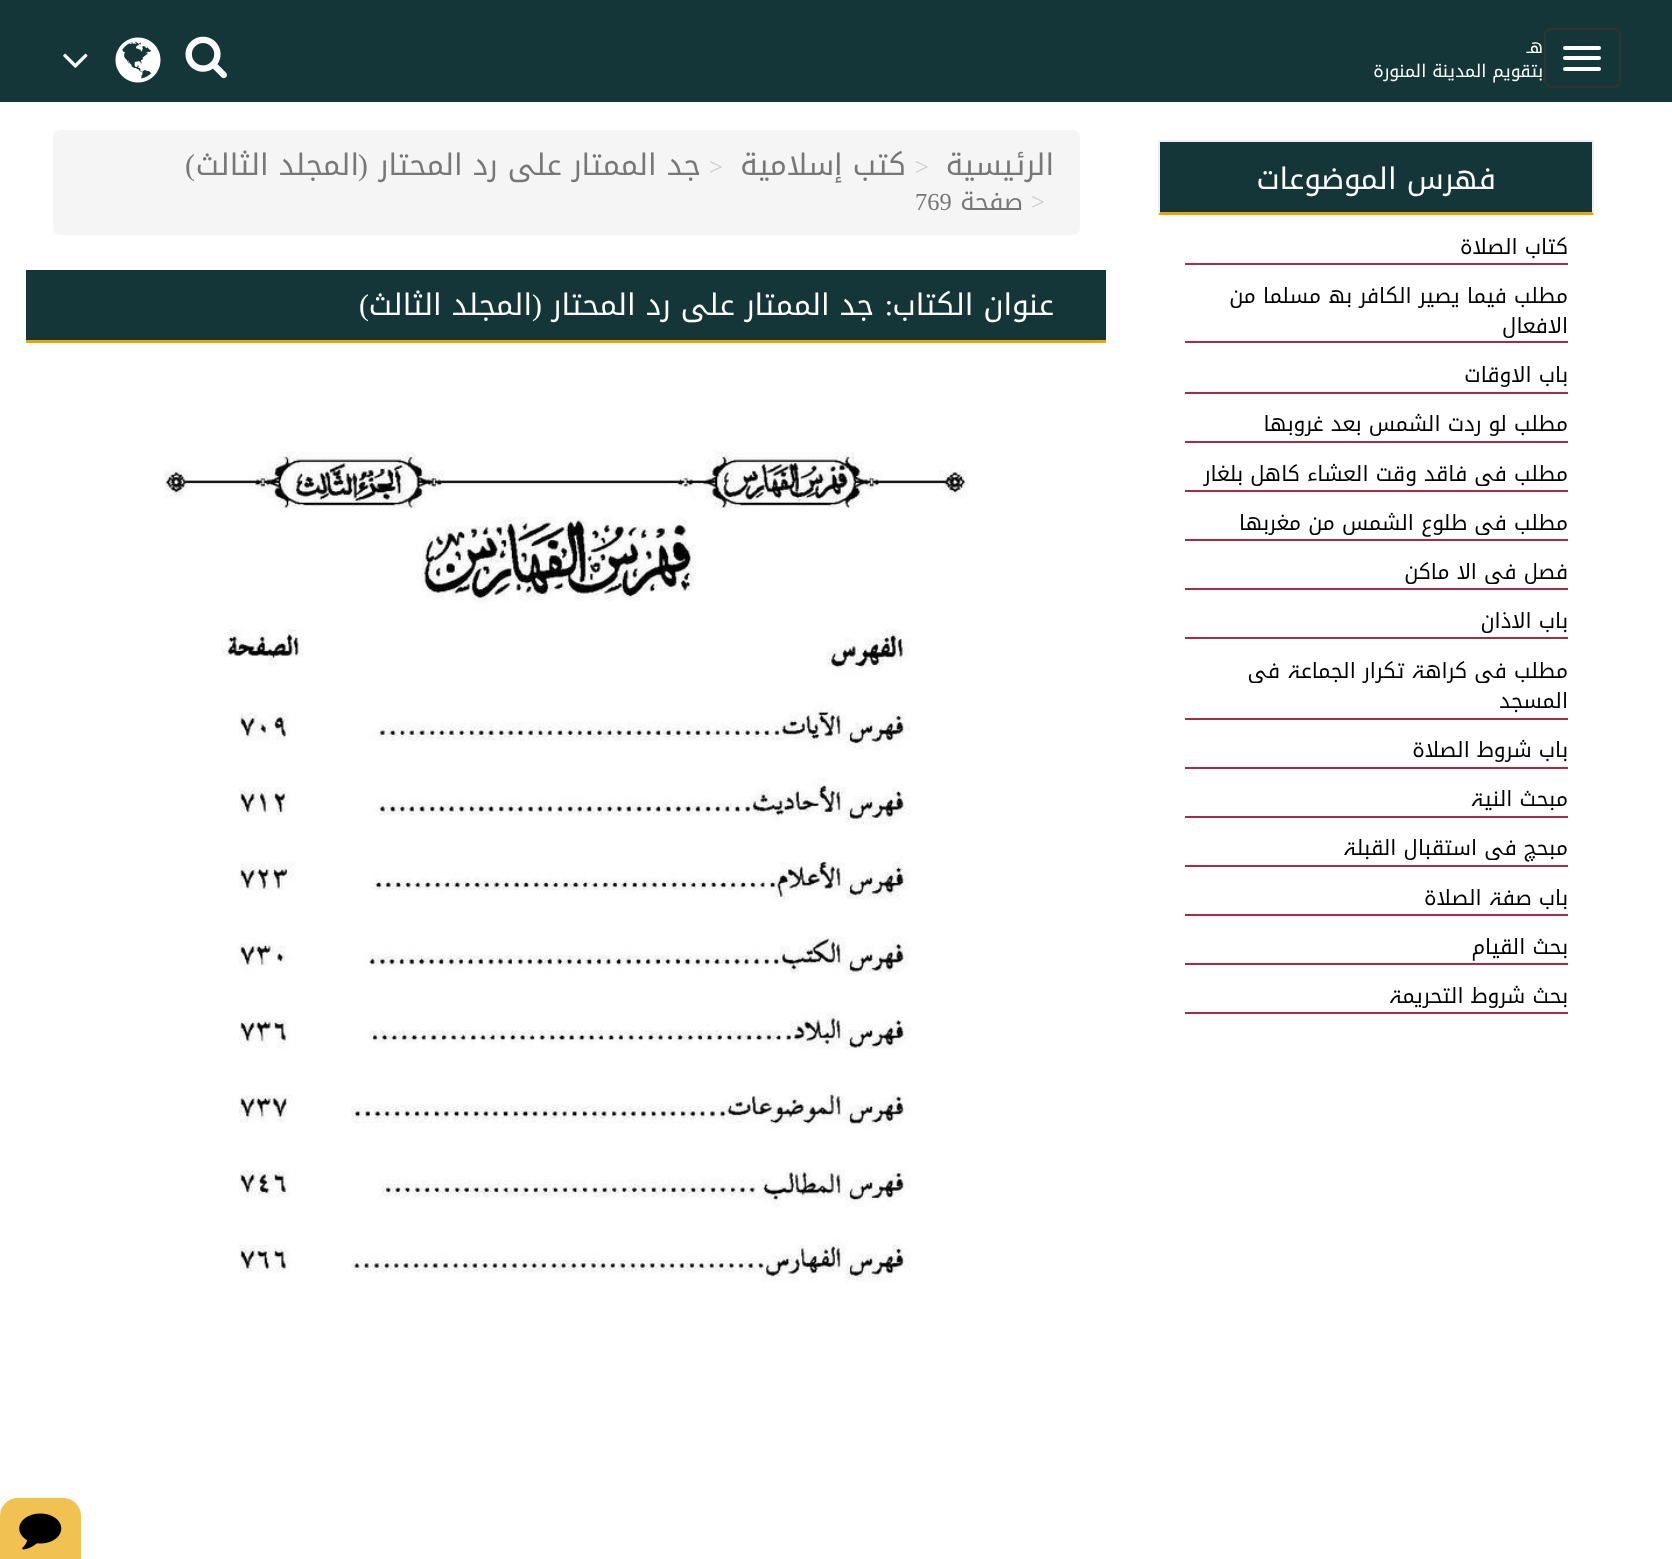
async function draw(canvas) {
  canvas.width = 1672
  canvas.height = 1559
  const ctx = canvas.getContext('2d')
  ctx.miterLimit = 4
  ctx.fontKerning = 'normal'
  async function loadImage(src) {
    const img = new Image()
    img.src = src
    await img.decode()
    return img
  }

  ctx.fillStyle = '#fff'
  ctx.fillRect(0, 0, 1672, 1559)
  ctx.fillStyle = '#153638'
  ctx.fillRect(0, 0, 1672, 102)
  ctx.beginPath()
  ctx.roundRect(1545, 29, 75, 58, 6)
  ctx.strokeStyle = '#333'
  ctx.lineWidth = 2
  ctx.stroke()
  ctx.fillStyle = '#fff'
  ctx.beginPath()
  ctx.roundRect(1563, 46, 38, 4, 2)
  ctx.fill()
  ctx.beginPath()
  ctx.roundRect(1563, 56, 38, 4, 2)
  ctx.fill()
  ctx.beginPath()
  ctx.roundRect(1563, 67, 38, 4, 2)
  ctx.fill()
  ctx.direction = 'rtl'
  ctx.font = '17.5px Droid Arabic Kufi'
  ctx.fillText('هـ', 1543, 53)
  ctx.fillText('بتقويم المدينة المنورة', 1543, 77)
  ctx.drawImage(await loadImage('image0.png'), 185, 36, 42, 43)
  ctx.drawImage(await loadImage('image1.png'), 115, 37, 46, 46)
  ctx.drawImage(await loadImage('image2.png'), 63, 53, 25, 15)
  ctx.fillStyle = '#f1c152'
  ctx.beginPath()
  ctx.roundRect(0, 1498, 81, 61, [18, 18, 0, 0])
  ctx.fill()
  ctx.drawImage(await loadImage('image3.png'), 19, 1513, 43, 37)
  ctx.fillStyle = '#153638'
  ctx.fillRect(1160, 142, 432, 70)
  ctx.fillStyle = '#eee'
  ctx.fillRect(1159, 140, 435, 2)
  ctx.beginPath()
  ctx.moveTo(1594, 140)
  ctx.lineTo(1594, 215)
  ctx.lineTo(1592, 212)
  ctx.lineTo(1592, 142)
  ctx.closePath()
  ctx.fill()
  ctx.fillStyle = '#eca404'
  ctx.beginPath()
  ctx.moveTo(1594, 215)
  ctx.lineTo(1158, 215)
  ctx.lineTo(1160, 212)
  ctx.lineTo(1592, 212)
  ctx.closePath()
  ctx.fill()
  ctx.fillStyle = '#eee'
  ctx.beginPath()
  ctx.moveTo(1158, 215)
  ctx.lineTo(1158, 140)
  ctx.lineTo(1160, 142)
  ctx.lineTo(1160, 212)
  ctx.closePath()
  ctx.fill()
  ctx.font = '29.75px Droid Arabic Kufi'
  ctx.fillStyle = '#fff'
  ctx.fillText('فهرس الموضوعات', 1496, 189)
  ctx.fillStyle = '#a62b47'
  ctx.fillRect(1185, 263, 383, 2)
  ctx.font = '21px Droid Arabic Kufi'
  ctx.fillStyle = '#000'
  ctx.fillText('کتاب الصلاۃ', 1568, 254)
  ctx.fillStyle = '#a62b47'
  ctx.fillRect(1185, 341, 383, 2)
  ctx.fillStyle = '#000'
  ctx.fillText('مطلب فیما یصیر الکافر بھ مسلما من', 1568, 303)
  ctx.fillText('الافعال', 1568, 333)
  ctx.fillStyle = '#a62b47'
  ctx.fillRect(1185, 392, 383, 2)
  ctx.fillStyle = '#000'
  ctx.fillText('باب الاوقات', 1568, 382)
  ctx.fillStyle = '#a62b47'
  ctx.fillRect(1185, 441, 383, 2)
  ctx.fillStyle = '#000'
  ctx.fillText('مطلب لو ردت الشمس بعد غروبھا', 1568, 431)
  ctx.fillStyle = '#a62b47'
  ctx.fillRect(1185, 490, 383, 2)
  ctx.fillStyle = '#000'
  ctx.fillText('مطلب فی فاقد وقت العشاء کاھل بلغار', 1568, 481)
  ctx.fillStyle = '#a62b47'
  ctx.fillRect(1185, 539, 383, 2)
  ctx.fillStyle = '#000'
  ctx.fillText('مطلب فی طلوع الشمس من مغربھا', 1568, 530)
  ctx.fillStyle = '#a62b47'
  ctx.fillRect(1185, 588, 383, 2)
  ctx.fillStyle = '#000'
  ctx.fillText('فصل فی الا ماکن', 1568, 579)
  ctx.fillStyle = '#a62b47'
  ctx.fillRect(1185, 637, 383, 2)
  ctx.fillStyle = '#000'
  ctx.fillText('باب الاذان', 1568, 628)
  ctx.fillStyle = '#a62b47'
  ctx.fillRect(1185, 718, 383, 2)
  ctx.fillStyle = '#000'
  ctx.fillText('مطلب فی کراھۃ تکرار الجماعۃ فی', 1568, 678)
  ctx.fillText('المسجد', 1568, 708)
  ctx.fillStyle = '#a62b47'
  ctx.fillRect(1185, 767, 383, 2)
  ctx.fillStyle = '#000'
  ctx.fillText('باب شروط الصلاۃ', 1568, 757)
  ctx.fillStyle = '#a62b47'
  ctx.fillRect(1185, 816, 383, 2)
  ctx.fillStyle = '#000'
  ctx.fillText('مبحث النیۃ', 1568, 806)
  ctx.fillStyle = '#a62b47'
  ctx.fillRect(1185, 865, 383, 2)
  ctx.fillStyle = '#000'
  ctx.fillText('مبحچ فی استقبال القبلۃ', 1568, 855)
  ctx.fillStyle = '#a62b47'
  ctx.fillRect(1185, 914, 383, 2)
  ctx.fillStyle = '#000'
  ctx.fillText('باب صفۃ الصلاۃ', 1568, 905)
  ctx.fillStyle = '#a62b47'
  ctx.fillRect(1185, 963, 383, 2)
  ctx.fillStyle = '#000'
  ctx.fillText('بحث القیام', 1568, 954)
  ctx.fillStyle = '#a62b47'
  ctx.fillRect(1185, 1012, 383, 2)
  ctx.fillStyle = '#000'
  ctx.fillText('بحث شروط التحریمۃ', 1568, 1003)
  ctx.fillStyle = '#f5f5f5'
  ctx.beginPath()
  ctx.roundRect(53, 130, 1027, 105, 7)
  ctx.fill()
  ctx.font = '29.75px Droid Arabic Kufi'
  ctx.fillStyle = '#777'
  ctx.fillText('الرئيسية', 1054, 175)
  ctx.direction = 'ltr'
  ctx.font = '24.5px Liberation Serif'
  ctx.fillStyle = '#ccc'
  ctx.fillText('>', 915, 175)
  ctx.direction = 'rtl'
  ctx.font = '29.75px Droid Arabic Kufi'
  ctx.fillStyle = '#777'
  ctx.fillText('كتب إسلامية', 906, 175)
  ctx.direction = 'ltr'
  ctx.font = '24.5px Liberation Serif'
  ctx.fillStyle = '#ccc'
  ctx.fillText('>', 709, 175)
  ctx.direction = 'rtl'
  ctx.font = '29.75px Droid Arabic Kufi'
  ctx.fillStyle = '#777'
  ctx.fillText('جد الممتار على رد المحتار', 701, 175)
  ctx.font = '29.75px Liberation Serif'
  ctx.fillText('(', 368, 175)
  ctx.font = '29.75px Droid Arabic Kufi'
  ctx.fillText('المجلد الثالث', 359, 175)
  ctx.font = '29.75px Liberation Serif'
  ctx.fillText(')', 195, 175)
  ctx.direction = 'ltr'
  ctx.font = '24.5px Liberation Serif'
  ctx.fillStyle = '#ccc'
  ctx.fillText('>', 1031, 210)
  ctx.direction = 'rtl'
  ctx.font = '24.5px Droid Arabic Kufi'
  ctx.fillStyle = '#777'
  ctx.fillText('صفحة', 1023, 210)
  ctx.direction = 'ltr'
  ctx.font = '24.5px Liberation Serif'
  ctx.fillText('769', 915, 210)
  ctx.fillStyle = '#153638'
  ctx.fillRect(26, 270, 1080, 70)
  ctx.fillStyle = '#eca404'
  ctx.fillRect(26, 340, 1080, 3)
  ctx.direction = 'rtl'
  ctx.font = '29.75px Droid Arabic Kufi'
  ctx.fillStyle = '#fff'
  ctx.fillText('عنوان الكتاب', 1054, 315)
  ctx.font = '29.75px Liberation Serif'
  ctx.fillText(':', 893, 315)
  ctx.font = '29.75px Droid Arabic Kufi'
  ctx.fillText('جد الممتار على رد المحتار', 874, 315)
  ctx.font = '29.75px Liberation Serif'
  ctx.fillText('(', 542, 315)
  ctx.font = '29.75px Droid Arabic Kufi'
  ctx.fillText('المجلد الثالث', 532, 315)
  ctx.font = '29.75px Liberation Serif'
  ctx.fillText(')', 369, 315)
  ctx.drawImage(await loadImage('image4.png'), 164, 451, 805, 831)
}

draw(document.querySelector('canvas'))
